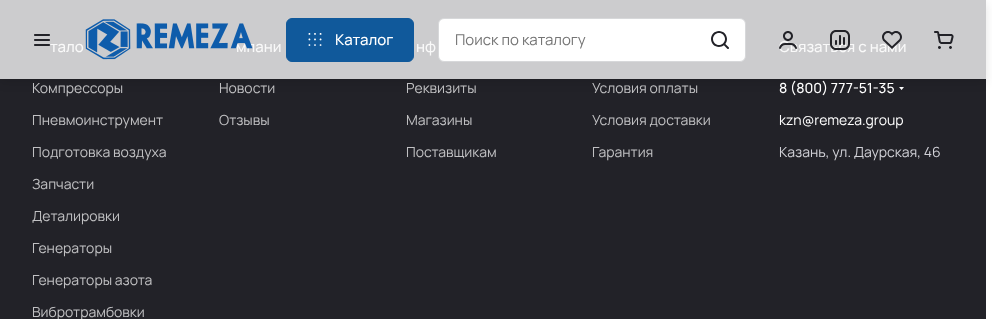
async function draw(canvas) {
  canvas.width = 992
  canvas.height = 319
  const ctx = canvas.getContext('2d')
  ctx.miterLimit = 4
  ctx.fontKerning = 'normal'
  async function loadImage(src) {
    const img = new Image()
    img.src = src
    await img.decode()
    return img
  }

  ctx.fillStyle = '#fff'
  ctx.fillRect(0, 0, 992, 319)
  ctx.fillStyle = '#222228'
  ctx.fillRect(0, 79, 986, 240)
  ctx.fillStyle = '#ccccce'
  ctx.fillRect(0, 0, 986, 79)
  ctx.drawImage(await loadImage('image8.png'), 899, 87, 5, 3)
  ctx.save()
  ctx.beginPath()
  ctx.moveTo(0, 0)
  ctx.lineTo(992, 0)
  ctx.lineTo(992, 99)
  ctx.lineTo(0, 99)
  ctx.closePath()
  ctx.moveTo(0, 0)
  ctx.lineTo(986, 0)
  ctx.lineTo(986, 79)
  ctx.lineTo(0, 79)
  ctx.closePath()
  ctx.clip('evenodd')
  ctx.fillStyle = '#0000001a'
  ctx.filter = 'blur(5px)'
  ctx.beginPath()
  ctx.rect(0, 4, 986, 79)
  ctx.fill()
  ctx.filter = 'none'
  ctx.restore()
  ctx.font = '200 15px Manrope'
  ctx.fillStyle = '#f9f9f9'
  ctx.fillText('тало', 50, 52)
  ctx.drawImage(await loadImage('image0.png'), 34, 34, 16, 12)
  ctx.fillText('мпани', 236, 52)
  ctx.drawImage(await loadImage('image1.png'), 85, 19, 168, 41)
  ctx.fillStyle = '#10599b'
  ctx.beginPath()
  ctx.roundRect(286.5, 18.5, 127, 43, 5.5)
  ctx.fill()
  ctx.strokeStyle = '#10599b'
  ctx.stroke()
  ctx.drawImage(await loadImage('image2.png'), 308, 33, 14, 13)
  ctx.fillStyle = '#fff'
  ctx.fillText('Каталог', 335, 45)
  ctx.beginPath()
  ctx.roundRect(438.5, 18.5, 307, 43, 5.5)
  ctx.fill()
  ctx.strokeStyle = '#d7d8da'
  ctx.stroke()
  ctx.font = '200 15px "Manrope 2"'
  ctx.fillStyle = '#757575'
  ctx.fillText('Поиск по каталогу', 455, 45)
  ctx.drawImage(await loadImage('image3.png'), 711, 31, 18, 18)
  ctx.font = '200 15px Manrope'
  ctx.fillStyle = '#f9f9f9'
  ctx.fillText('Связаться с нами', 779, 52)
  ctx.drawImage(await loadImage('image4.png'), 779, 31, 18, 18)
  ctx.drawImage(await loadImage('image5.png'), 830, 30, 20, 20)
  ctx.drawImage(await loadImage('image6.png'), 882, 31, 20, 18)
  ctx.drawImage(await loadImage('image7.png'), 934, 31, 20, 18)
  ctx.font = '200 14px "Manrope 2"'
  ctx.fillStyle = '#c1c1c3'
  ctx.fillText('Компрессоры', 32, 93)
  ctx.fillText('Пневмоинструмент', 32, 125)
  ctx.fillText('Подготовка воздуха', 32, 157)
  ctx.fillText('Запчасти', 32, 189)
  ctx.fillText('Деталировки', 32, 221)
  ctx.fillText('Генераторы', 32, 253)
  ctx.fillText('Генераторы азота', 32, 285)
  ctx.fillText('Вибротрамбовки', 32, 317)
  ctx.fillText('Новости', 219, 93)
  ctx.fillText('Отзывы', 219, 125)
  ctx.font = '200 15px Manrope'
  ctx.fillStyle = '#f9f9f9'
  ctx.fillText('нф', 416, 52)
  ctx.font = '200 14px "Manrope 2"'
  ctx.fillStyle = '#c1c1c3'
  ctx.fillText('Реквизиты', 406, 93)
  ctx.fillText('Магазины', 406, 125)
  ctx.fillText('Поставщикам', 406, 157)
  ctx.fillText('Условия оплаты', 592, 93)
  ctx.fillText('Условия доставки', 592, 125)
  ctx.fillText('Гарантия', 592, 157)
  ctx.font = '200 14px Manrope'
  ctx.fillStyle = '#fff'
  ctx.fillText('8 (800) 777-51-35', 779, 93)
  ctx.font = '200 14px "Manrope 2"'
  ctx.fillText('kzn@remeza.group', 779, 125)
  ctx.fillStyle = '#d1d1d7'
  ctx.fillText('Казань, ул. Даурская, 46', 779, 157)
}

draw(document.querySelector('canvas'))
